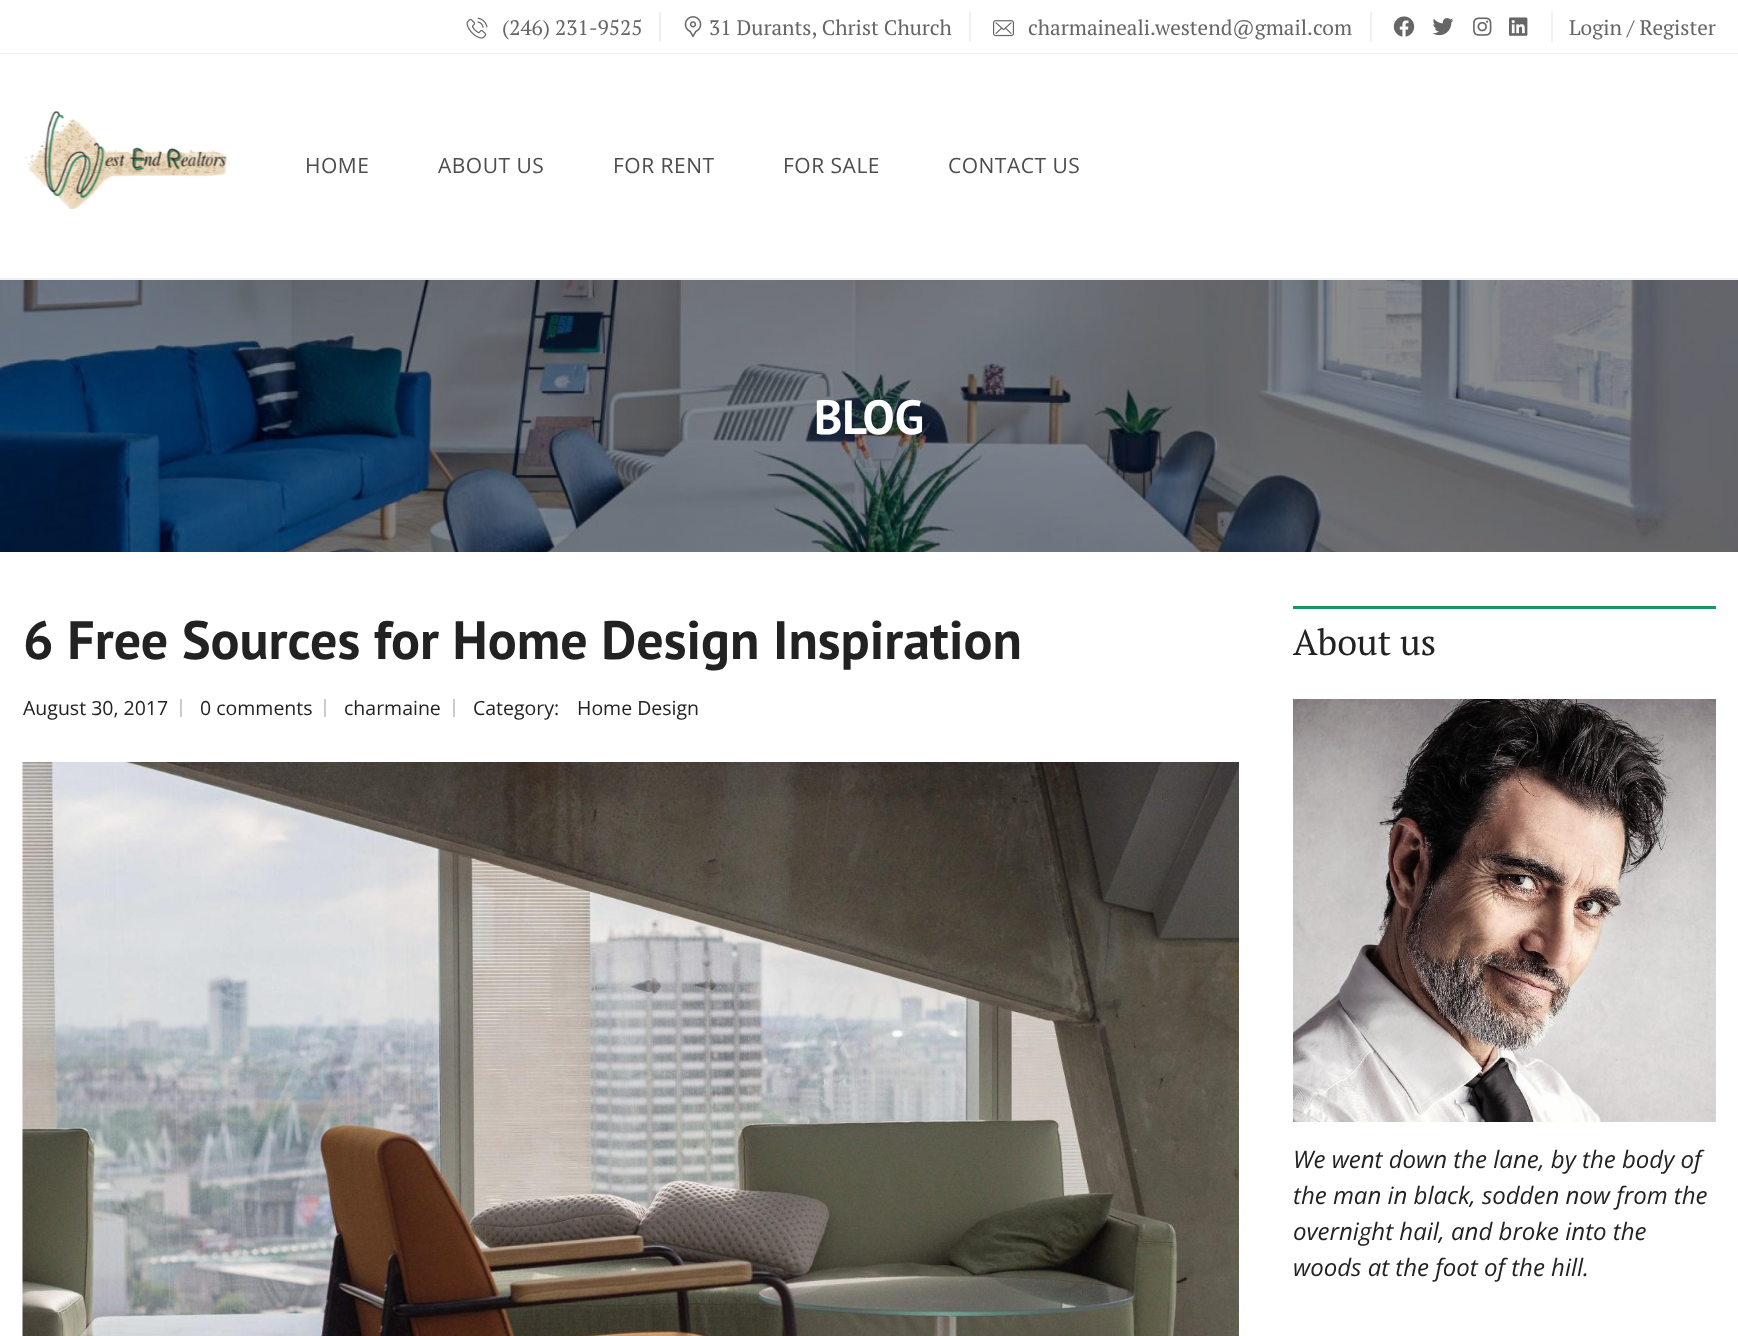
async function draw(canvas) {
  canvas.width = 1738
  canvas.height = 1336
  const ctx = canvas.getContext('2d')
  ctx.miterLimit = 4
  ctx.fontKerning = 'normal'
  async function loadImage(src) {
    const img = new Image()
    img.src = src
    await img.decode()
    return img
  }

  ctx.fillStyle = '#fff'
  ctx.fillRect(0, 0, 1738, 1336)
  ctx.fillStyle = '#f0f0f0'
  ctx.fillRect(0, 53, 1738, 1)
  ctx.drawImage(await loadImage('image0.png'), 466, 17, 22, 22)
  ctx.font = '21px PT Serif'
  ctx.fillStyle = '#666'
  ctx.fillText('(246) 231-9525', 502, 35)
  ctx.fillStyle = '#f0f0f0'
  ctx.fillRect(659, 12, 2, 30)
  ctx.drawImage(await loadImage('image1.png'), 684, 16, 18, 22)
  ctx.fillStyle = '#666'
  ctx.fillText('31 Durants, Christ Church', 709, 35)
  ctx.fillStyle = '#f0f0f0'
  ctx.fillRect(969, 12, 2, 30)
  ctx.drawImage(await loadImage('image2.png'), 993, 20, 21, 17)
  ctx.fillStyle = '#666'
  ctx.fillText('charmaineali.westend@gmail.com', 1028, 35)
  ctx.fillStyle = '#f0f0f0'
  ctx.fillRect(1370, 12, 2, 30)
  ctx.drawImage(await loadImage('image3.png'), 1393, 16, 22, 21)
  ctx.drawImage(await loadImage('image4.png'), 1432, 18, 22, 18)
  ctx.drawImage(await loadImage('image5.png'), 1473, 17, 19, 19)
  ctx.drawImage(await loadImage('image6.png'), 1509, 17, 19, 19)
  ctx.fillRect(1551, 12, 2, 30)
  ctx.fillStyle = '#666'
  ctx.fillText('Login / Register', 1569, 35)
  ctx.drawImage(await loadImage('image7.png'), 24, 111, 204, 99)
  ctx.letterSpacing = '0.5px'
  ctx.font = '21px Open Sans'
  ctx.fillStyle = '#4d4d4d'
  ctx.fillText('HOME', 305, 173)
  ctx.fillText('ABOUT US', 438, 173)
  ctx.fillText('FOR RENT', 613, 173)
  ctx.fillText('FOR SALE', 783, 173)
  ctx.fillText('CONTACT US', 948, 173)
  ctx.fillStyle = '#f0f0f0'
  ctx.fillRect(0, 278, 1738, 2)
  ctx.drawImage(await loadImage('image8.png'), 0, 280, 1738, 272)
  ctx.letterSpacing = '0px'
  ctx.font = 'bold 48px PT Sans'
  ctx.fillStyle = '#fff'
  ctx.fillText('BLOG', 814, 434)
  ctx.font = 'bold 54px PT Sans'
  ctx.fillStyle = '#222'
  ctx.fillText('6 Free Sources for Home Design Inspiration', 23, 659)
  ctx.font = '19.5px Open Sans'
  ctx.fillText('August 30, 2017', 23, 715)
  ctx.fillStyle = '#ccc'
  ctx.fillRect(180, 699, 2, 18)
  ctx.fillStyle = '#222'
  ctx.fillText('0 comments', 200, 715)
  ctx.fillStyle = '#ccc'
  ctx.fillRect(324, 699, 2, 18)
  ctx.fillStyle = '#222'
  ctx.fillText('charmaine', 344, 715)
  ctx.fillStyle = '#ccc'
  ctx.fillRect(453, 699, 2, 18)
  ctx.fillStyle = '#222'
  ctx.fillText('Category:', 473, 715)
  ctx.fillText('Home Design', 577, 715)
  ctx.drawImage(await loadImage('image9.png'), 22, 762, 1217, 574)
  ctx.fillStyle = '#129a61'
  ctx.fillRect(1293, 606, 423, 3)
  ctx.font = '36px PT Serif'
  ctx.fillStyle = '#222'
  ctx.fillText('About us', 1293, 655)
  ctx.drawImage(await loadImage('image10.png'), 1293, 699, 423, 423)
  ctx.font = 'italic 24px Open Sans'
  ctx.fillText('We went down the lane, by the body of', 1293, 1168)
  ctx.fillText('the man in black, sodden now from the', 1293, 1204)
  ctx.fillText('overnight hail, and broke into the', 1293, 1240)
  ctx.fillText('woods at the foot of the hill.', 1293, 1276)
}

draw(document.querySelector('canvas'))
